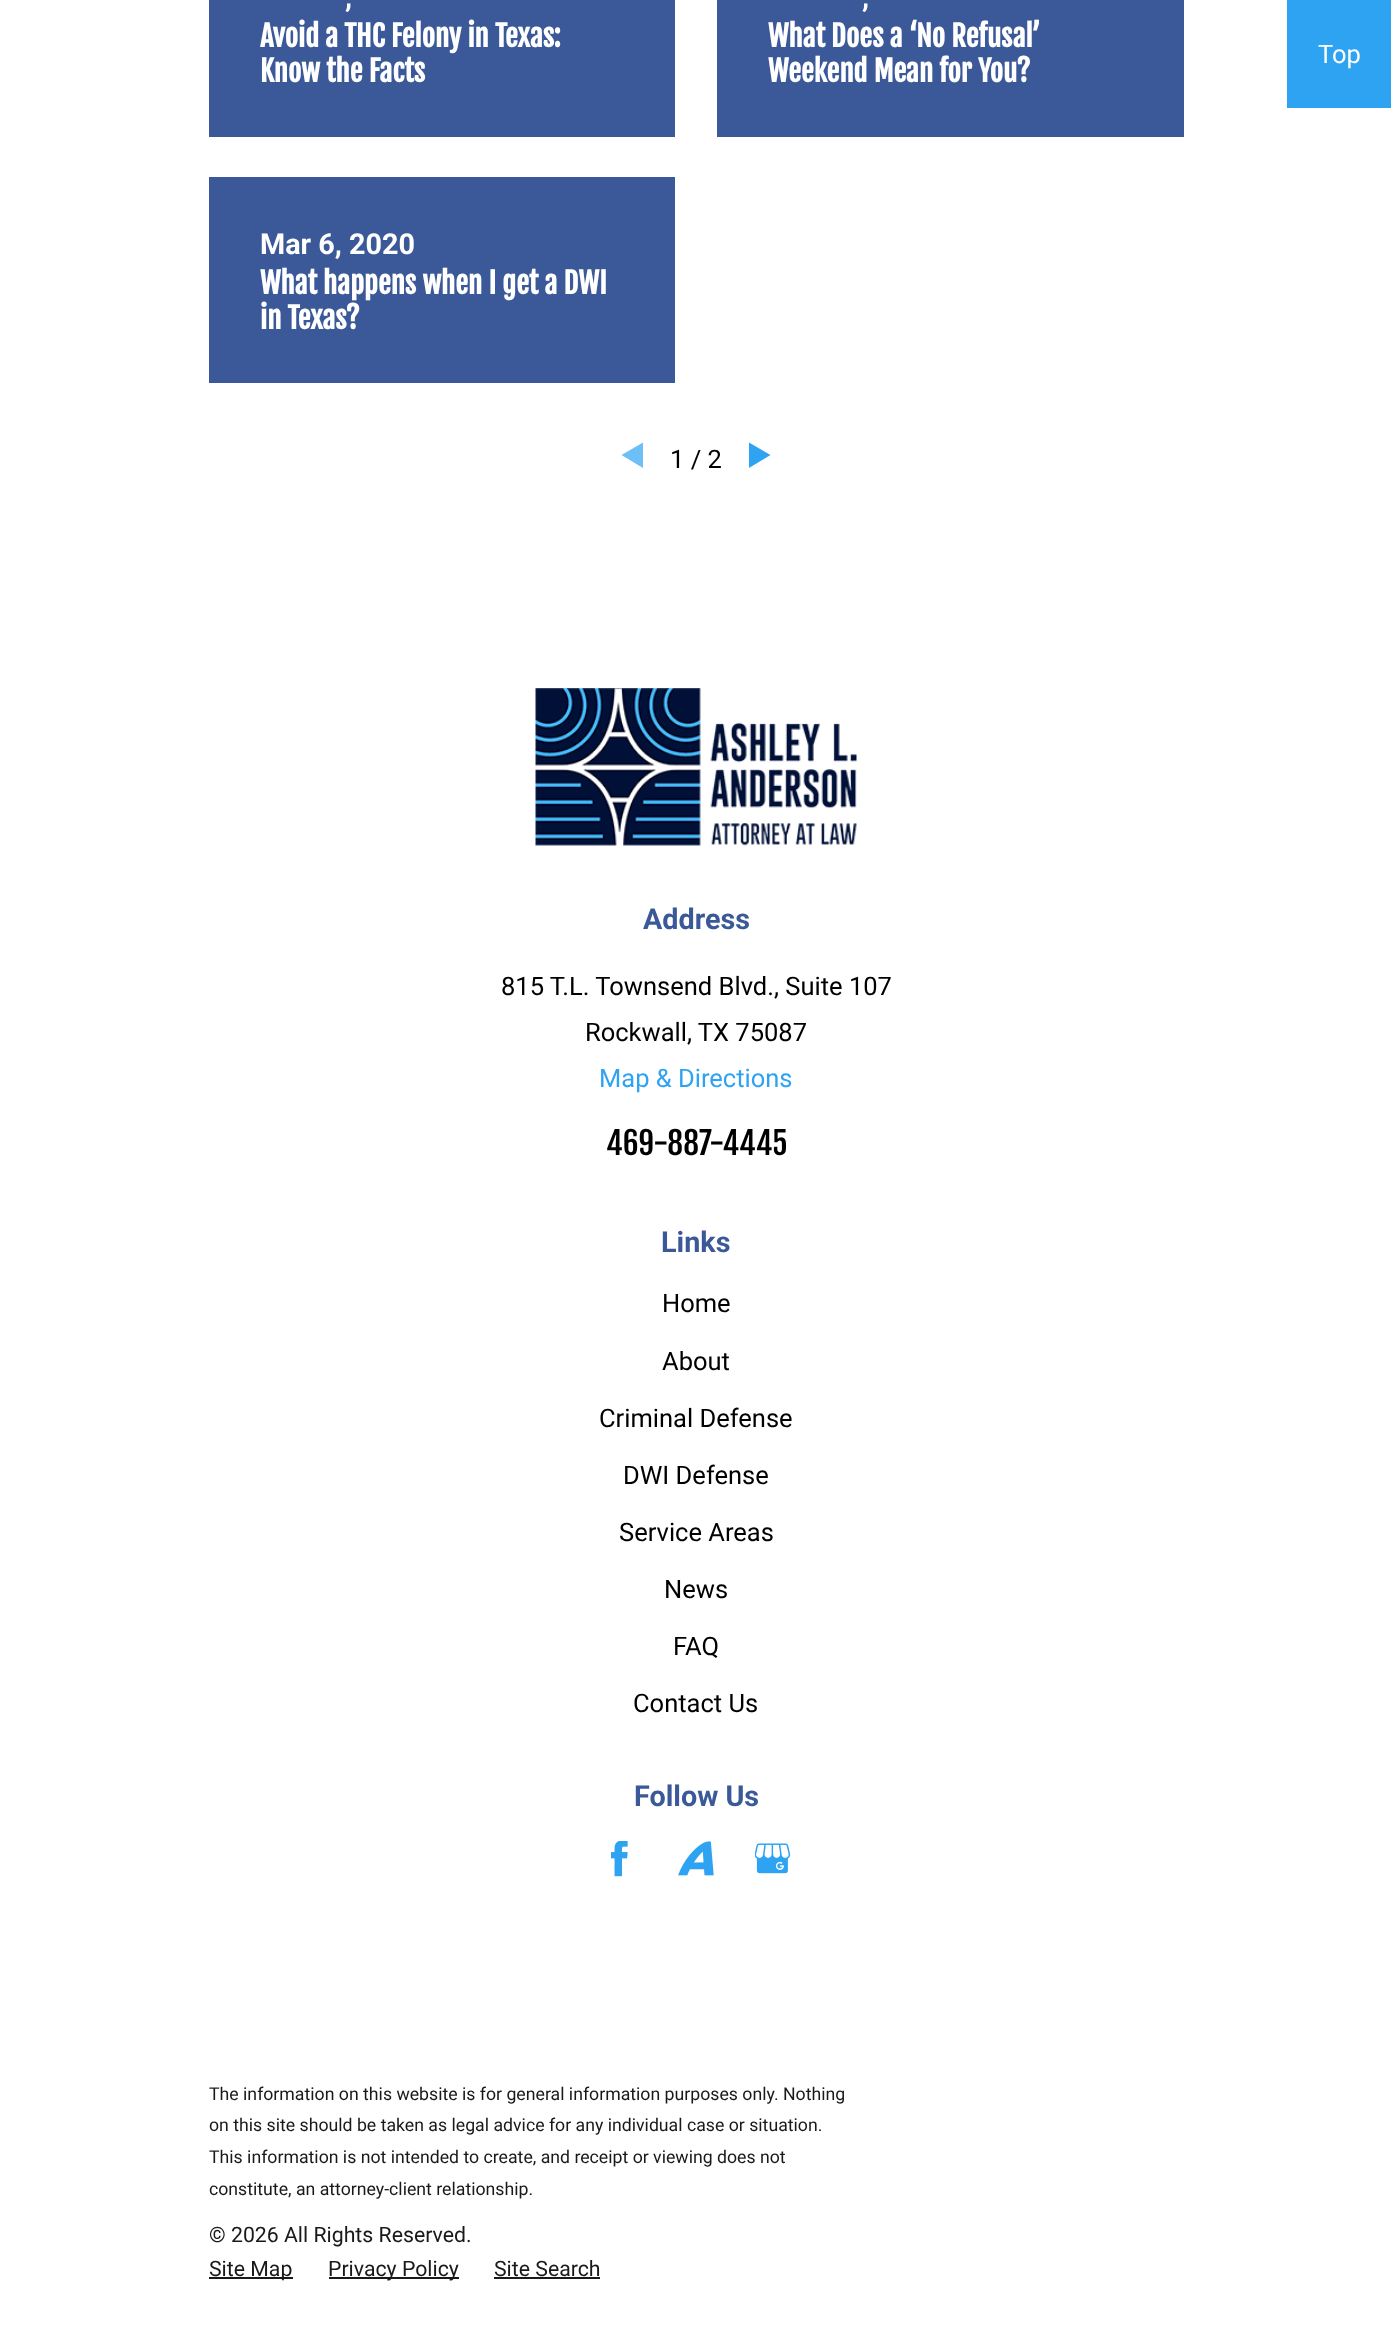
async function draw(canvas) {
  canvas.width = 1391
  canvas.height = 2330
  const ctx = canvas.getContext('2d')
  ctx.miterLimit = 4
  ctx.fontKerning = 'normal'
  async function loadImage(src) {
    const img = new Image()
    img.src = src
    await img.decode()
    return img
  }

  ctx.fillStyle = '#fff'
  ctx.fillRect(0, 0, 1391, 2330)
  ctx.fillStyle = '#3b5998'
  ctx.fillRect(209, 0, 466, 137)
  ctx.font = 'bold 28.75px Roboto'
  ctx.fillStyle = '#fff'
  ctx.fillText(',', 345, 7)
  ctx.font = 'bold 28.75px Fjalla One'
  ctx.fillText('Avoid a THC Felony in Texas:', 260, 47)
  ctx.fillText('Know the Facts', 260, 82)
  ctx.fillStyle = '#3b5998'
  ctx.fillRect(717, 0, 467, 137)
  ctx.font = 'bold 28.75px Roboto'
  ctx.fillStyle = '#fff'
  ctx.fillText(',', 862, 7)
  ctx.font = 'bold 28.75px Fjalla One'
  ctx.fillText('What Does a ‘No Refusal’', 768, 47)
  ctx.fillText('Weekend Mean for You?', 768, 82)
  ctx.fillStyle = '#3b5998'
  ctx.fillRect(209, 177, 466, 206)
  ctx.font = 'bold 28.75px Roboto'
  ctx.fillStyle = '#fff'
  ctx.fillText('Mar 6, 2020', 260, 254)
  ctx.font = 'bold 28.75px Fjalla One'
  ctx.fillText('What happens when I get a DWI', 260, 294)
  ctx.fillText('in Texas?', 260, 329)
  ctx.fillStyle = '#6dbff6'
  ctx.beginPath()
  ctx.moveTo(621.5, 455)
  ctx.lineTo(643, 442.5)
  ctx.lineTo(643, 468)
  ctx.closePath()
  ctx.fill()
  ctx.font = '25.5px Roboto'
  ctx.fillStyle = '#000'
  ctx.fillText('1 / 2', 670, 468)
  ctx.fillStyle = '#2ea3f2'
  ctx.beginPath()
  ctx.moveTo(770.5, 455)
  ctx.lineTo(749, 468)
  ctx.lineTo(749, 442.5)
  ctx.closePath()
  ctx.fill()
  ctx.fillRect(1287, 0, 104, 108)
  ctx.fillStyle = '#fff'
  ctx.fillText('Top', 1318, 63)
  ctx.drawImage(await loadImage('image0.png'), 535, 688, 322, 158)
  ctx.font = 'bold 28.75px Roboto'
  ctx.fillStyle = '#3b5998'
  ctx.fillText('Address', 643, 929)
  ctx.font = '25.5px Roboto'
  ctx.fillStyle = '#000'
  ctx.fillText('815 T.L. Townsend Blvd., Suite 107', 501, 995)
  ctx.fillText('Rockwall, TX 75087', 585, 1041)
  ctx.fillStyle = '#2ea3f2'
  ctx.fillText('Map & Directions', 599, 1087)
  ctx.font = '31.25px Fjalla One'
  ctx.fillStyle = '#000'
  ctx.fillText('469-887-4445', 606, 1155)
  ctx.font = 'bold 28.75px Roboto'
  ctx.fillStyle = '#3b5998'
  ctx.fillText('Links', 661, 1252)
  ctx.font = '25.5px Roboto'
  ctx.fillStyle = '#000'
  ctx.fillText('Home', 662, 1312)
  ctx.fillText('About', 662, 1370)
  ctx.fillText('Criminal Defense', 599, 1427)
  ctx.fillText('DWI Defense', 623, 1484)
  ctx.fillText('Service Areas', 619, 1541)
  ctx.fillText('News', 664, 1598)
  ctx.fillText('FAQ', 673, 1655)
  ctx.fillText('Contact Us', 633, 1712)
  ctx.font = 'bold 28.75px Roboto'
  ctx.fillStyle = '#3b5998'
  ctx.fillText('Follow Us', 634, 1806)
  ctx.drawImage(await loadImage('image1.png'), 611, 1841, 17, 36)
  ctx.drawImage(await loadImage('image2.png'), 678, 1841, 36, 35)
  ctx.drawImage(await loadImage('image3.png'), 755, 1843, 36, 31)
  ctx.font = '17.7px Roboto'
  ctx.fillStyle = '#191919'
  ctx.fillText('The information on this website is for general information purposes only. Nothing', 209, 2100)
  ctx.fillText('on this site should be taken as legal advice for any individual case or situation.', 209, 2131)
  ctx.fillText('This information is not intended to create, and receipt or viewing does not', 209, 2163)
  ctx.fillText('constitute, an attorney-client relationship.', 209, 2195)
  ctx.font = '21.25px Roboto'
  ctx.fillText('© 2026 All Rights Reserved.', 209, 2242)
  ctx.fillRect(209, 2277, 84, 2)
  ctx.fillText('Site Map', 209, 2276)
  ctx.fillRect(329, 2277, 130, 2)
  ctx.fillText('Privacy Policy', 328, 2276)
  ctx.fillText('Site Search', 494, 2276)
  ctx.fillRect(494, 2277, 106, 2)
}

draw(document.querySelector('canvas'))
